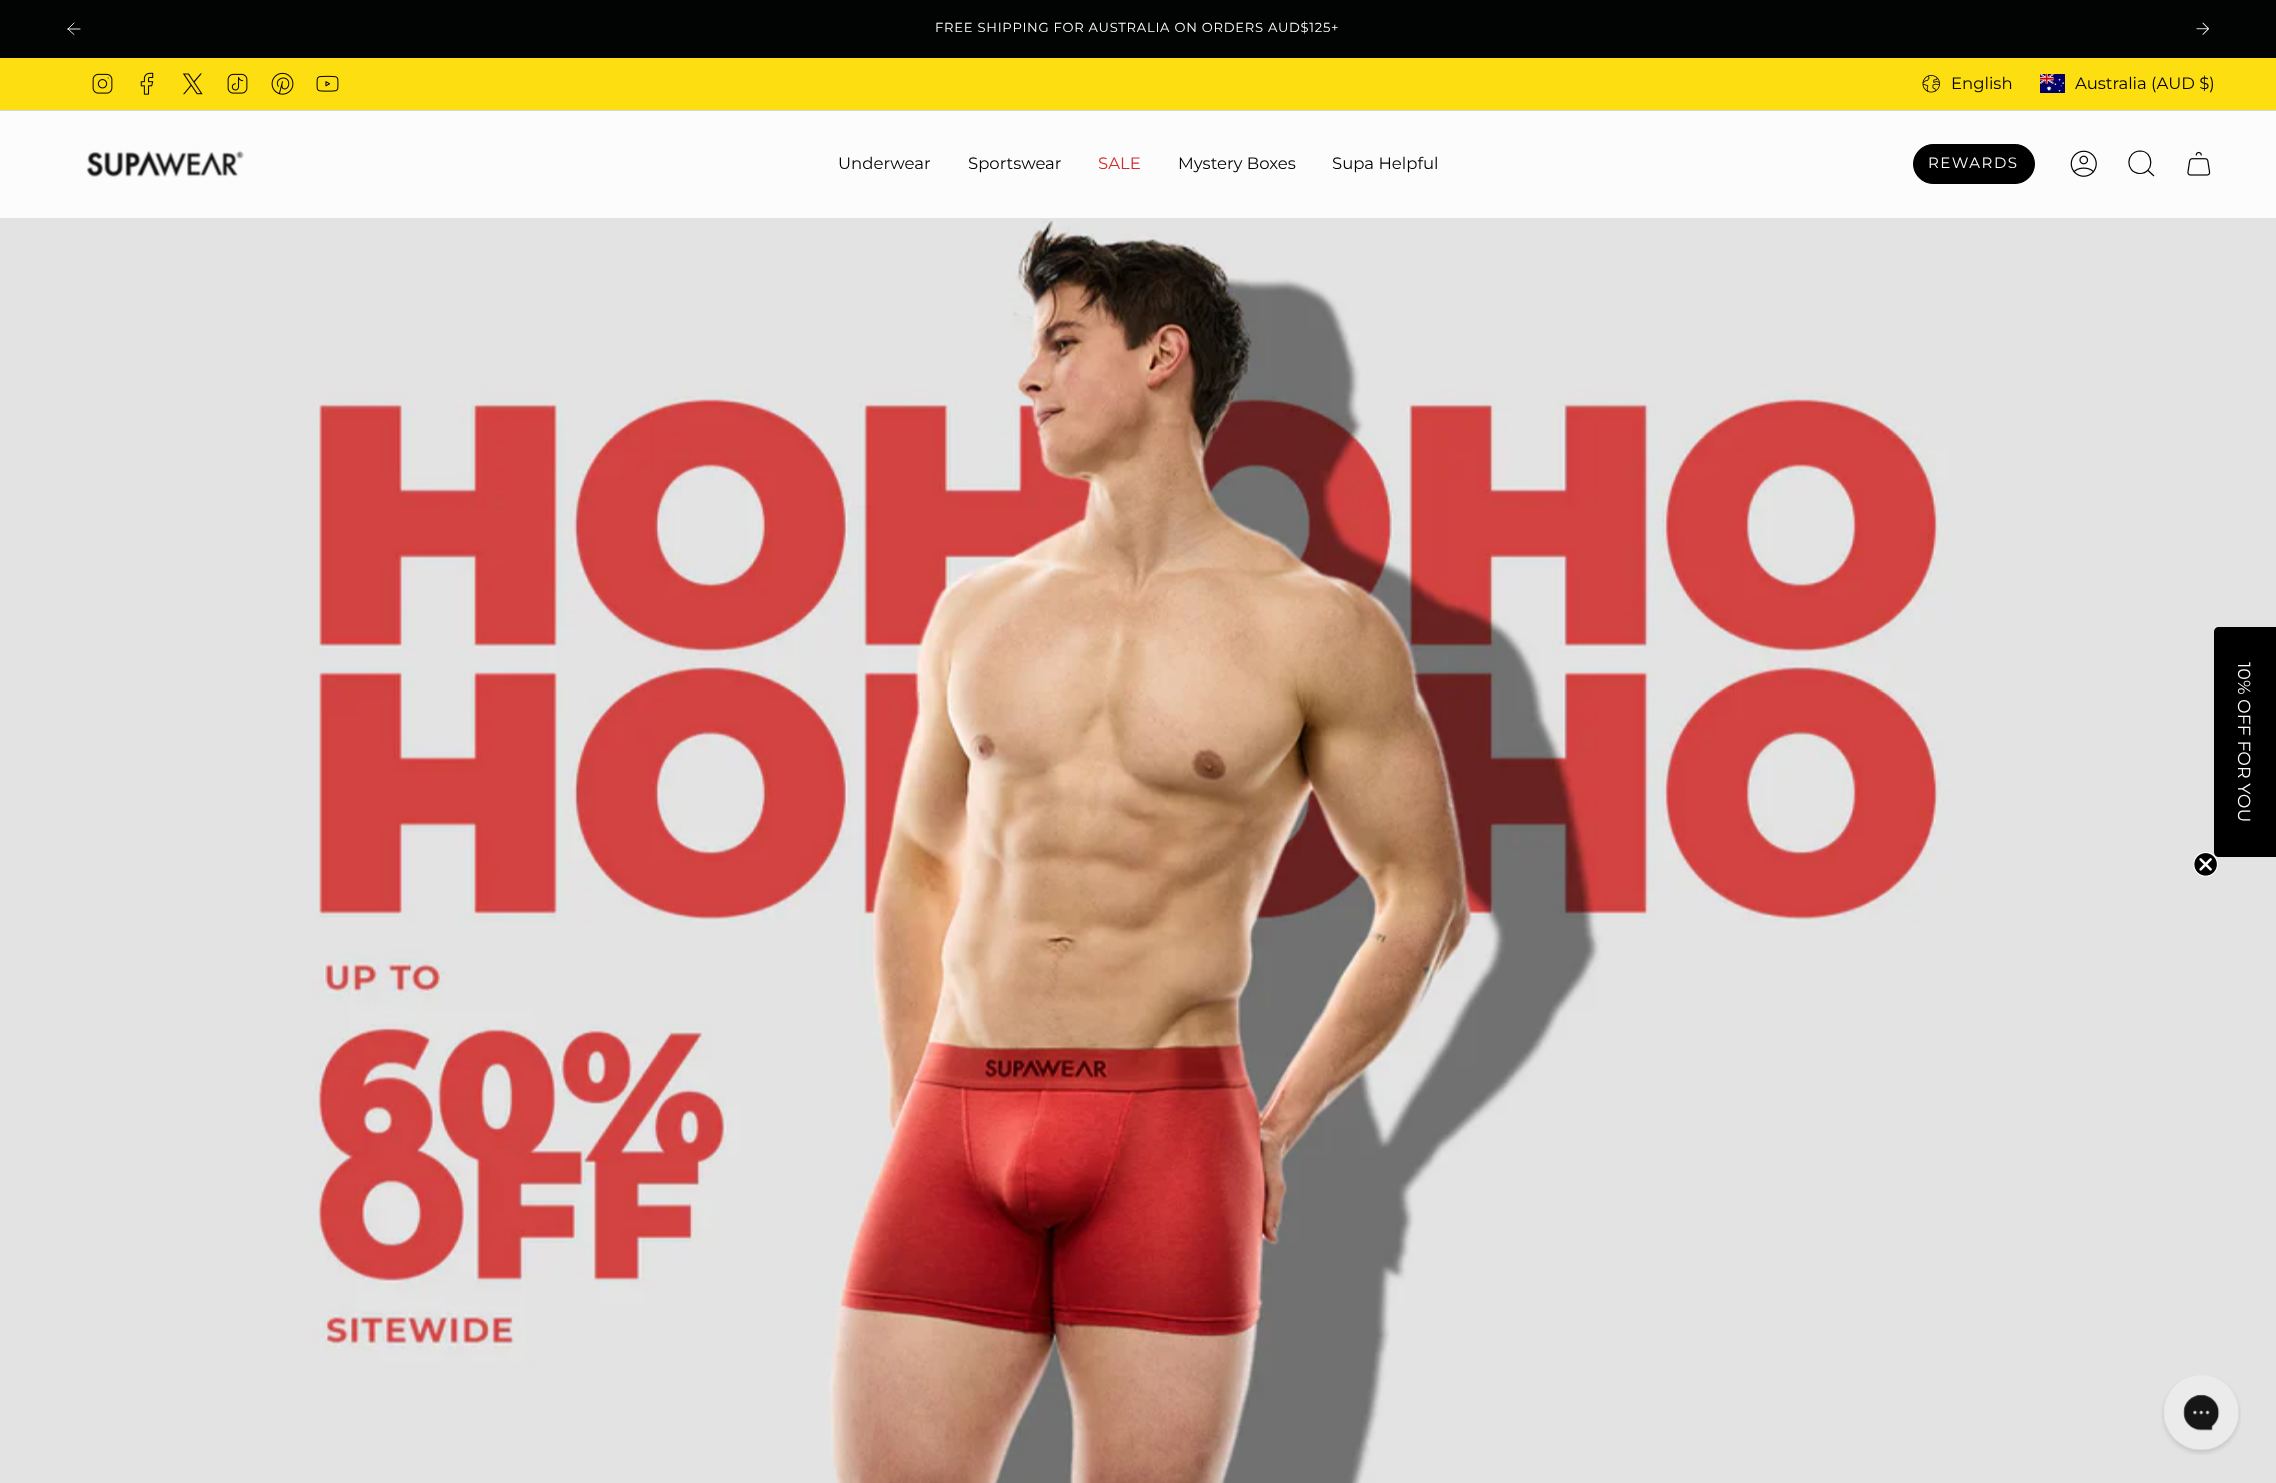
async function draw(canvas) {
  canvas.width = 2276
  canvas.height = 1483
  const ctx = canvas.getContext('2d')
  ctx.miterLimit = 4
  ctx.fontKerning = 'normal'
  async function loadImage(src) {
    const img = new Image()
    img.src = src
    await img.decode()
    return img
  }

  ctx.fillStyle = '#fcfcfc'
  ctx.fillRect(0, 0, 2276, 1483)
  ctx.fillStyle = '#020303'
  ctx.fillRect(0, 0, 2276, 58)
  ctx.beginPath()
  ctx.moveTo(80, 29)
  ctx.lineTo(68, 29)
  ctx.moveTo(68, 29)
  ctx.lineTo(74, 23)
  ctx.moveTo(68, 29)
  ctx.lineTo(74, 34.5)
  ctx.strokeStyle = '#fff'
  ctx.lineWidth = 0.9
  ctx.lineCap = 'round'
  ctx.lineJoin = 'round'
  ctx.stroke()
  ctx.letterSpacing = '0.75px'
  ctx.font = '13.1px Montserrat'
  ctx.fillStyle = '#fff'
  ctx.fillText('FREE SHIPPING FOR AUSTRALIA ON ORDERS AUD$125+', 935, 32)
  ctx.drawImage(await loadImage('image0.png'), 2196, 22, 13, 13)
  ctx.fillStyle = '#fcde11'
  ctx.fillRect(0, 58, 2276, 52)
  ctx.drawImage(await loadImage('image1.png'), 92, 73, 21, 21)
  ctx.drawImage(await loadImage('image2.png'), 140, 72, 14, 23)
  ctx.drawImage(await loadImage('image3.png'), 182, 73, 21, 22)
  ctx.drawImage(await loadImage('image4.png'), 227, 73, 21, 21)
  ctx.drawImage(await loadImage('image5.png'), 271, 72, 23, 23)
  ctx.drawImage(await loadImage('image6.png'), 316, 75, 23, 17)
  ctx.drawImage(await loadImage('image7.png'), 1922, 75, 18, 18)
  ctx.letterSpacing = '0px'
  ctx.font = '16.5px Montserrat'
  ctx.fillStyle = '#000'
  ctx.fillText('English', 1951, 89)
  ctx.drawImage(await loadImage('image8.png'), 2040, 74, 25, 19)
  ctx.fillText('Australia (AUD $)', 2075, 89)
  ctx.fillStyle = '#d6d6d6'
  ctx.fillRect(0, 110, 2276, 1)
  ctx.drawImage(await loadImage('image9.png'), 86, 150, 158, 27)
  ctx.fillStyle = '#000'
  ctx.fillText('Underwear', 838, 169)
  ctx.fillText('Sportswear', 968, 169)
  ctx.fillStyle = '#d02e2e'
  ctx.fillText('SALE', 1098, 169)
  ctx.fillStyle = '#000'
  ctx.fillText('Mystery Boxes', 1178, 169)
  ctx.fillText('Supa Helpful', 1332, 169)
  ctx.beginPath()
  ctx.roundRect(1913.5, 144.5, 121, 39, 19.5)
  ctx.fill()
  ctx.strokeStyle = '#000'
  ctx.lineWidth = 1
  ctx.lineJoin = 'miter'
  ctx.stroke()
  ctx.letterSpacing = '1.5px'
  ctx.font = '15px Montserrat'
  ctx.fillStyle = '#fff'
  ctx.fillText('REWARDS', 1928, 168)
  ctx.drawImage(await loadImage('image10.png'), 2070, 150, 27, 27)
  ctx.beginPath()
  ctx.moveTo(2140, 151)
  ctx.bezierCurveTo(2154.5, 151, 2154.5, 174, 2139.5, 173.5)
  ctx.bezierCurveTo(2125, 172.5, 2125.5, 151.5, 2140, 151)
  ctx.closePath()
  ctx.moveTo(2147.5, 170)
  ctx.lineTo(2154, 176)
  ctx.lineWidth = 1.2
  ctx.lineCap = 'butt'
  ctx.stroke()
  ctx.drawImage(await loadImage('image11.png'), 2187, 151, 24, 25)
  ctx.drawImage(await loadImage('image12.png'), 0, 218, 2276, 1265)
  ctx.fillStyle = '#000'
  ctx.beginPath()
  ctx.moveTo(2276, 627)
  ctx.lineTo(2276, 857)
  ctx.lineTo(2219, 857)
  ctx.bezierCurveTo(2216, 857, 2214, 855, 2214, 852)
  ctx.lineTo(2214, 632)
  ctx.bezierCurveTo(2214, 629, 2216, 627, 2219, 627)
  ctx.closePath()
  ctx.fill()
  ctx.letterSpacing = '0px'
  ctx.font = '17.5px Montserrat'
  ctx.fillStyle = '#fff'
  ctx.save()
  ctx.translate(2238, 662)
  ctx.rotate(90 * Math.PI / 180)
  ctx.fillText('10% OFF FOR YOU', 0, 0)
  ctx.restore()
  ctx.drawImage(await loadImage('image13.png'), 2193, 852, 25, 25)
  ctx.drawImage(await loadImage('image14.png'), 2161, 1375, 80, 80)
}

draw(document.querySelector('canvas'))
